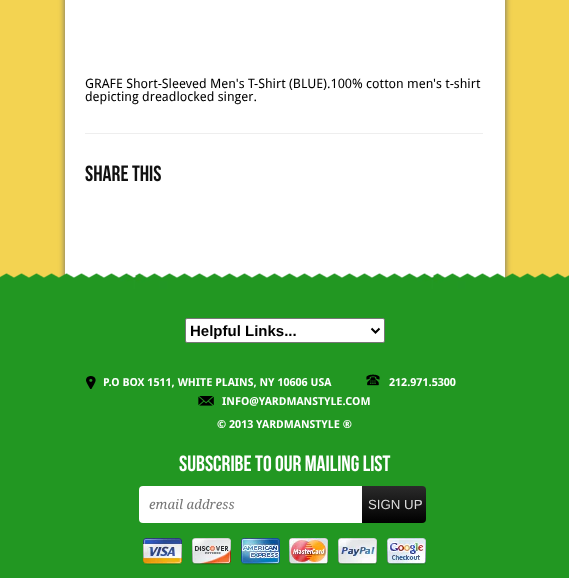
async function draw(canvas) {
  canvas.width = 569
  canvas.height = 578
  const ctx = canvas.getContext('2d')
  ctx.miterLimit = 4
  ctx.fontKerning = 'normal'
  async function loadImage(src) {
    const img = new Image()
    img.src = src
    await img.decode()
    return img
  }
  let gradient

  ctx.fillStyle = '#f3d351'
  ctx.fillRect(0, 0, 569, 578)
  ctx.fillStyle = '#666'
  ctx.filter = 'blur(3px)'
  ctx.beginPath()
  ctx.rect(65, -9, 440, 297)
  ctx.fill()
  ctx.filter = 'none'
  ctx.fillStyle = '#fff'
  ctx.fillRect(65, 0, 440, 278)
  ctx.font = '13px Droid Sans'
  ctx.fillStyle = '#000'
  ctx.fillText('GRAFE Short-Sleeved Men\'s T-Shirt (BLUE).100% cotton men\'s t-shirt', 85, 88)
  ctx.fillText('depicting dreadlocked singer.', 85, 101)
  ctx.fillStyle = '#eee'
  ctx.fillRect(85, 133, 398, 1)
  ctx.font = '22px Bebas Neue'
  ctx.fillStyle = '#111'
  ctx.fillText('Share This', 85, 181)
  ctx.drawImage(await loadImage('image0.png'), 0, 273, 569, 305)
  ctx.fillStyle = '#fff'
  ctx.beginPath()
  ctx.roundRect(185.5, 318.5, 199, 24, 1.5)
  ctx.fill()
  ctx.strokeStyle = '#767676'
  ctx.stroke()
  ctx.beginPath()
  ctx.moveTo(371.5, 328.5)
  ctx.lineTo(375.5, 332.5)
  ctx.lineTo(379.5, 328.5)
  ctx.strokeStyle = '#000'
  ctx.lineWidth = 2
  ctx.stroke()
  ctx.font = 'bold 15px Liberation Sans'
  ctx.fillStyle = '#000'
  ctx.fillText('Helpful Links...', 190, 336)
  ctx.drawImage(await loadImage('image1.png'), 86, 376, 10, 13)
  ctx.font = 'bold 11px Droid Sans'
  ctx.fillStyle = '#fff'
  ctx.fillText('P.O BOX 1511, WHITE PLAINS, NY 10606 USA', 103, 386)
  ctx.drawImage(await loadImage('image2.png'), 366, 374, 14, 12)
  ctx.fillText('212.971.5300', 389, 386)
  ctx.drawImage(await loadImage('image3.png'), 198, 396, 16, 10)
  ctx.fillText('INFO@YARDMANSTYLE.COM', 222, 405)
  ctx.fillText('© 2013 YARDMANSTYLE ®', 217, 428)
  ctx.font = '22px Bebas Neue'
  ctx.fillText('Subscribe to our mailing list', 179, 471)
  ctx.beginPath()
  ctx.roundRect(139, 486, 223, 37, [4, 0, 0, 4])
  ctx.fill()
  ctx.font = 'italic 13.25px Droid Serif'
  ctx.fillStyle = '#757575'
  ctx.fillText('email address', 149, 509)
  gradient = ctx.createLinearGradient(394, 486, 394, 523)
  gradient.addColorStop(0, '#2b2b2b')
  gradient.addColorStop(1, '#000')
  ctx.fillStyle = gradient
  ctx.beginPath()
  ctx.roundRect(362, 486, 64, 37, [0, 4, 4, 0])
  ctx.fill()
  ctx.font = '13.25px Liberation Sans'
  ctx.fillStyle = '#ddd'
  ctx.fillText('SIGN UP', 368, 509)
  ctx.drawImage(await loadImage('image4.png'), 143, 538, 39, 27)
  ctx.drawImage(await loadImage('image5.png'), 192, 538, 39, 27)
  ctx.drawImage(await loadImage('image6.png'), 241, 538, 39, 27)
  ctx.drawImage(await loadImage('image7.png'), 289, 538, 39, 27)
  ctx.drawImage(await loadImage('image8.png'), 338, 538, 39, 27)
  ctx.drawImage(await loadImage('image9.png'), 387, 538, 39, 27)
}

draw(document.querySelector('canvas'))
